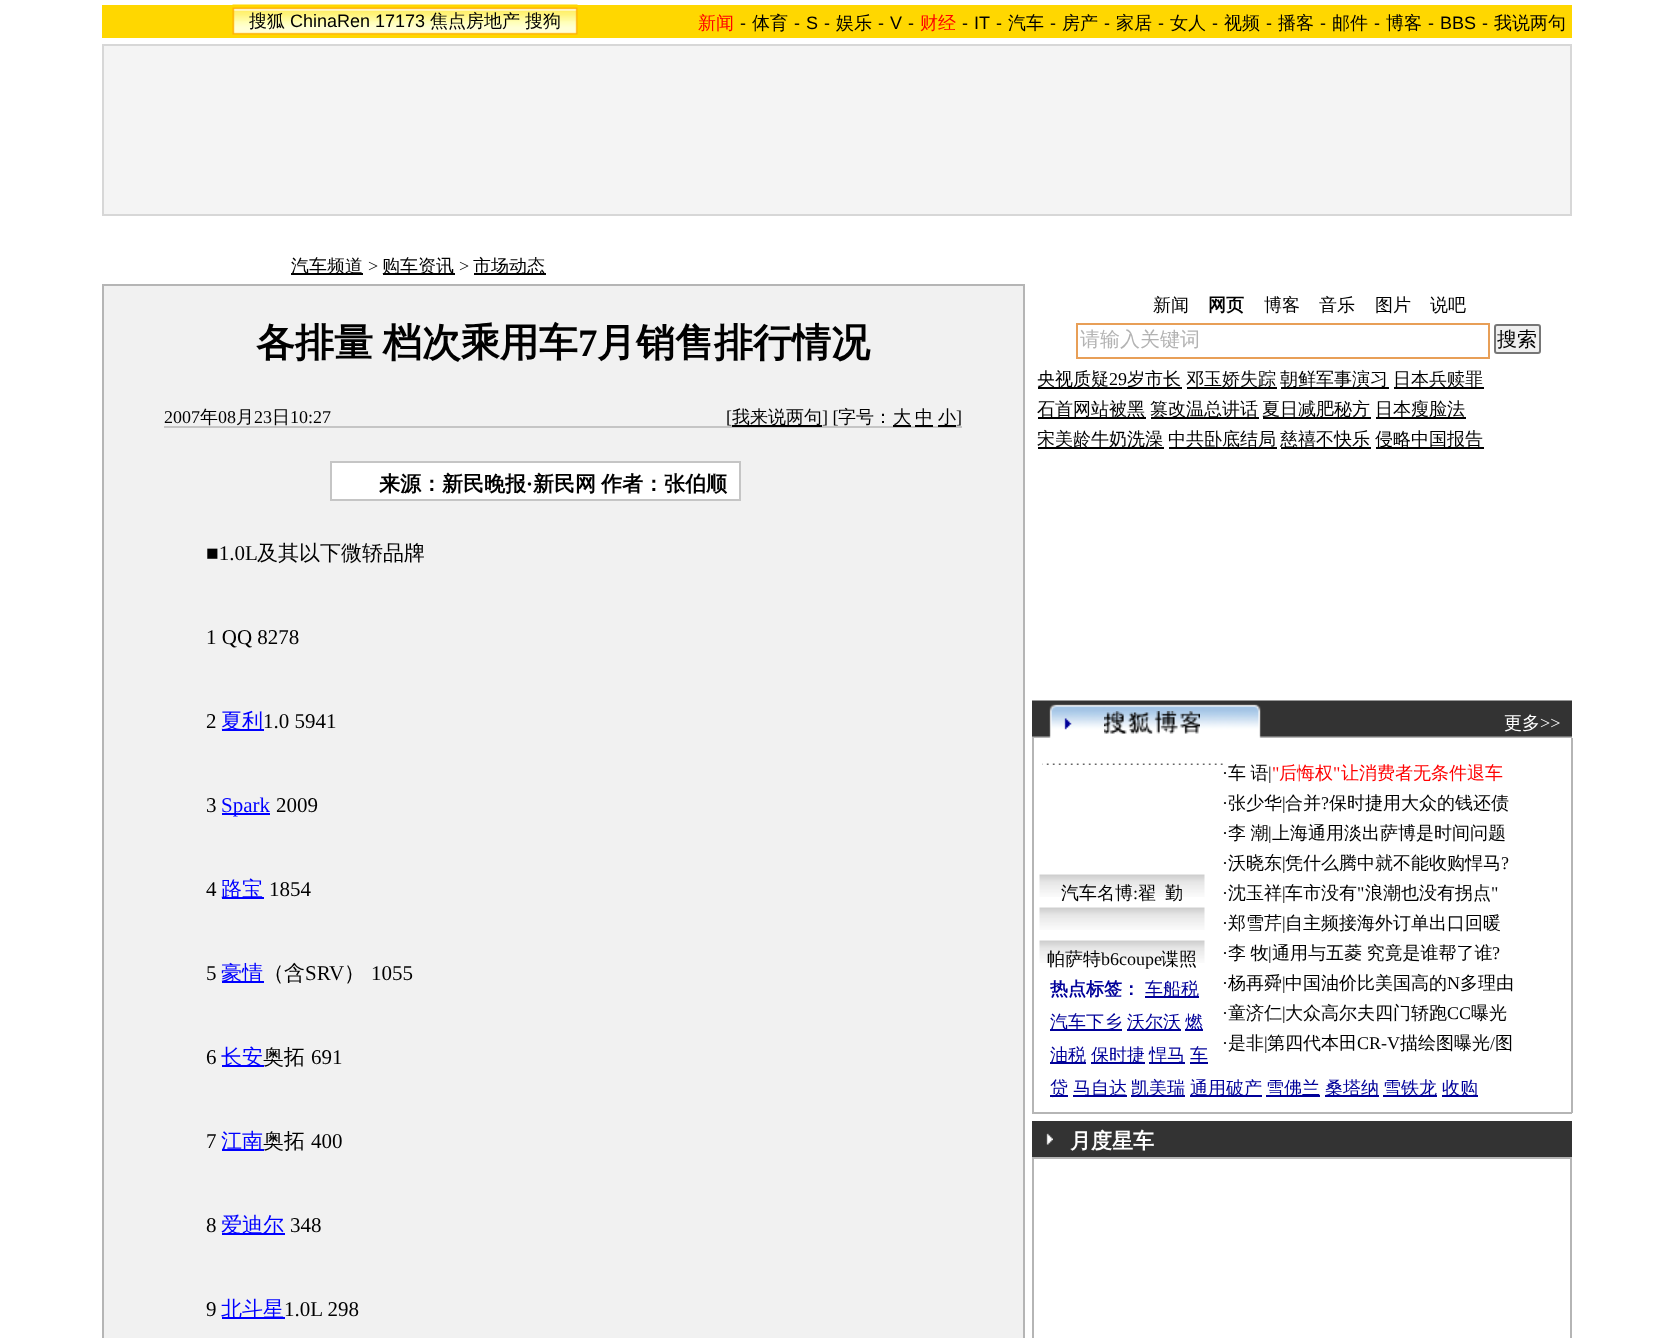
async function draw(canvas) {
  canvas.width = 1673
  canvas.height = 1338
  const ctx = canvas.getContext('2d')
  ctx.miterLimit = 4
  ctx.fontKerning = 'normal'
  async function loadImage(src) {
    const img = new Image()
    img.src = src
    await img.decode()
    return img
  }

  ctx.fillStyle = '#fff'
  ctx.fillRect(0, 0, 1673, 1338)
  ctx.fillStyle = '#ffd700'
  ctx.fillRect(102, 5, 1470, 33)
  ctx.drawImage(await loadImage('image0.png'), 232, 4, 346, 31)
  ctx.font = '500 18px WenQuanYi Zen Hei'
  ctx.fillStyle = '#000'
  ctx.fillText('搜狐', 249, 27)
  ctx.font = '18px Liberation Sans'
  ctx.fillText('ChinaRen 17173', 290, 27)
  ctx.font = '500 18px WenQuanYi Zen Hei'
  ctx.fillText('焦点房地产', 430, 27)
  ctx.fillText('搜狗', 525, 27)
  ctx.fillStyle = '#f00'
  ctx.fillText('新闻', 698, 29)
  ctx.font = '18px Liberation Sans'
  ctx.fillStyle = '#000'
  ctx.fillText('-', 740, 29)
  ctx.font = '500 18px WenQuanYi Zen Hei'
  ctx.fillText('体育', 752, 29)
  ctx.font = '18px Liberation Sans'
  ctx.fillText('-', 794, 29)
  ctx.fillText('S', 806, 29)
  ctx.fillText('-', 824, 29)
  ctx.font = '500 18px WenQuanYi Zen Hei'
  ctx.fillText('娱乐', 836, 29)
  ctx.font = '18px Liberation Sans'
  ctx.fillText('-', 878, 29)
  ctx.fillText('V', 890, 29)
  ctx.fillText('-', 908, 29)
  ctx.font = '500 18px WenQuanYi Zen Hei'
  ctx.fillStyle = '#f00'
  ctx.fillText('财经', 920, 29)
  ctx.font = '18px Liberation Sans'
  ctx.fillStyle = '#000'
  ctx.fillText('-', 962, 29)
  ctx.fillText('IT', 974, 29)
  ctx.fillText('-', 996, 29)
  ctx.font = '500 18px WenQuanYi Zen Hei'
  ctx.fillText('汽车', 1008, 29)
  ctx.font = '18px Liberation Sans'
  ctx.fillText('-', 1050, 29)
  ctx.font = '500 18px WenQuanYi Zen Hei'
  ctx.fillText('房产', 1062, 29)
  ctx.font = '18px Liberation Sans'
  ctx.fillText('-', 1104, 29)
  ctx.font = '500 18px WenQuanYi Zen Hei'
  ctx.fillText('家居', 1116, 29)
  ctx.font = '18px Liberation Sans'
  ctx.fillText('-', 1158, 29)
  ctx.font = '500 18px WenQuanYi Zen Hei'
  ctx.fillText('女人', 1170, 29)
  ctx.font = '18px Liberation Sans'
  ctx.fillText('-', 1212, 29)
  ctx.font = '500 18px WenQuanYi Zen Hei'
  ctx.fillText('视频', 1224, 29)
  ctx.font = '18px Liberation Sans'
  ctx.fillText('-', 1266, 29)
  ctx.font = '500 18px WenQuanYi Zen Hei'
  ctx.fillText('播客', 1278, 29)
  ctx.font = '18px Liberation Sans'
  ctx.fillText('-', 1320, 29)
  ctx.font = '500 18px WenQuanYi Zen Hei'
  ctx.fillText('邮件', 1332, 29)
  ctx.font = '18px Liberation Sans'
  ctx.fillText('-', 1374, 29)
  ctx.font = '500 18px WenQuanYi Zen Hei'
  ctx.fillText('博客', 1386, 29)
  ctx.font = '18px Liberation Sans'
  ctx.fillText('-', 1428, 29)
  ctx.fillText('BBS', 1440, 29)
  ctx.fillText('-', 1482, 29)
  ctx.font = '500 18px WenQuanYi Zen Hei'
  ctx.fillText('我说两句', 1494, 29)
  ctx.fillStyle = '#f4f4f4'
  ctx.beginPath()
  ctx.rect(103, 45, 1468, 170)
  ctx.fill()
  ctx.strokeStyle = '#d7d7d7'
  ctx.lineWidth = 2
  ctx.stroke()
  ctx.fillStyle = '#000'
  ctx.fillRect(291, 273, 72, 2)
  ctx.fillText('汽车频道', 291, 272)
  ctx.font = '18px Liberation Serif'
  ctx.fillText('>', 368, 272)
  ctx.fillRect(383, 273, 72, 2)
  ctx.font = '500 18px WenQuanYi Zen Hei'
  ctx.fillText('购车资讯', 382, 272)
  ctx.font = '18px Liberation Serif'
  ctx.fillText('>', 459, 272)
  ctx.fillRect(474, 273, 72, 2)
  ctx.font = '500 18px WenQuanYi Zen Hei'
  ctx.fillText('市场动态', 473, 272)
  ctx.fillStyle = '#f1f1f1'
  ctx.beginPath()
  ctx.rect(103, 285, 921, 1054)
  ctx.fill()
  ctx.strokeStyle = '#b5b5b5'
  ctx.stroke()
  ctx.wordSpacing = '-2px'
  ctx.font = 'bold 39px WenQuanYi Zen Hei'
  ctx.fillStyle = '#000'
  ctx.fillText('各排量 档次乘用车', 256, 356)
  ctx.wordSpacing = '0px'
  ctx.font = 'bold 39px Liberation Serif'
  ctx.fillText('7', 578, 356)
  ctx.font = 'bold 39px WenQuanYi Zen Hei'
  ctx.fillText('月销售排行情况', 597, 356)
  ctx.fillStyle = '#c5c5c5'
  ctx.fillRect(164, 426, 798, 2)
  ctx.font = '18px Liberation Serif'
  ctx.fillStyle = '#000'
  ctx.fillText('2007', 164, 423)
  ctx.font = '500 18px WenQuanYi Zen Hei'
  ctx.fillText('年', 200, 423)
  ctx.font = '18px Liberation Serif'
  ctx.fillText('08', 218, 423)
  ctx.font = '500 18px WenQuanYi Zen Hei'
  ctx.fillText('月', 236, 423)
  ctx.font = '18px Liberation Serif'
  ctx.fillText('23', 254, 423)
  ctx.font = '500 18px WenQuanYi Zen Hei'
  ctx.fillText('日', 272, 423)
  ctx.font = '18px Liberation Serif'
  ctx.fillText('10:27', 290, 423)
  ctx.fillText('[', 726, 423)
  ctx.fillRect(732, 425, 90, 2)
  ctx.font = '500 18px WenQuanYi Zen Hei'
  ctx.fillText('我来说两句', 732, 423)
  ctx.font = '18px Liberation Serif'
  ctx.fillText('] [', 822, 423)
  ctx.font = '500 18px WenQuanYi Zen Hei'
  ctx.fillText('字号：', 838, 423)
  ctx.fillRect(893, 425, 18, 2)
  ctx.fillText('大', 893, 423)
  ctx.fillText('中', 915, 423)
  ctx.fillRect(915, 425, 18, 2)
  ctx.fillRect(938, 425, 18, 2)
  ctx.fillText('小', 938, 423)
  ctx.font = '18px Liberation Serif'
  ctx.fillText(']', 956, 423)
  ctx.fillStyle = '#fff'
  ctx.beginPath()
  ctx.rect(331, 462, 409, 38)
  ctx.fill()
  ctx.strokeStyle = '#c5c5c5'
  ctx.stroke()
  ctx.font = 'bold 21px WenQuanYi Zen Hei'
  ctx.fillStyle = '#000'
  ctx.fillText('来源：新民晚报', 379, 491)
  ctx.font = 'bold 21px Liberation Serif'
  ctx.fillText('·', 526, 491)
  ctx.font = 'bold 21px WenQuanYi Zen Hei'
  ctx.fillText('新民网', 533, 491)
  ctx.fillText('作者：张伯顺', 601, 491)
  ctx.font = '21px Liberation Serif'
  ctx.fillText('■1.0L', 206, 560)
  ctx.font = '500 21px WenQuanYi Zen Hei'
  ctx.fillText('及其以下微轿品牌', 257, 560)
  ctx.font = '21px Liberation Serif'
  ctx.fillText('1 QQ 8278', 206, 644)
  ctx.fillText('2', 206, 728)
  ctx.fillStyle = '#00f'
  ctx.fillRect(222, 729, 42, 2)
  ctx.font = '500 21px WenQuanYi Zen Hei'
  ctx.fillText('夏利', 221, 728)
  ctx.font = '21px Liberation Serif'
  ctx.fillStyle = '#000'
  ctx.fillText('1.0 5941', 263, 728)
  ctx.fillText('3', 206, 812)
  ctx.fillStyle = '#00f'
  ctx.fillRect(222, 813, 48, 2)
  ctx.fillText('Spark', 221, 812)
  ctx.fillStyle = '#000'
  ctx.fillText('2009', 276, 812)
  ctx.fillText('4', 206, 896)
  ctx.fillStyle = '#00f'
  ctx.fillRect(222, 897, 42, 2)
  ctx.font = '500 21px WenQuanYi Zen Hei'
  ctx.fillText('路宝', 221, 896)
  ctx.font = '21px Liberation Serif'
  ctx.fillStyle = '#000'
  ctx.fillText('1854', 269, 896)
  ctx.fillText('5', 206, 980)
  ctx.fillStyle = '#00f'
  ctx.fillRect(222, 981, 42, 2)
  ctx.font = '500 21px WenQuanYi Zen Hei'
  ctx.fillText('豪情', 221, 980)
  ctx.fillStyle = '#000'
  ctx.fillText('（含', 263, 980)
  ctx.font = '21px Liberation Serif'
  ctx.fillText('SRV', 305, 980)
  ctx.font = '500 21px WenQuanYi Zen Hei'
  ctx.fillText('）', 344, 980)
  ctx.font = '21px Liberation Serif'
  ctx.fillText('1055', 371, 980)
  ctx.fillText('6', 206, 1064)
  ctx.fillStyle = '#00f'
  ctx.fillRect(222, 1065, 42, 2)
  ctx.font = '500 21px WenQuanYi Zen Hei'
  ctx.fillText('长安', 221, 1064)
  ctx.fillStyle = '#000'
  ctx.fillText('奥拓', 263, 1064)
  ctx.font = '21px Liberation Serif'
  ctx.fillText('691', 311, 1064)
  ctx.fillText('7', 206, 1148)
  ctx.fillStyle = '#00f'
  ctx.fillRect(222, 1149, 42, 2)
  ctx.font = '500 21px WenQuanYi Zen Hei'
  ctx.fillText('江南', 221, 1148)
  ctx.fillStyle = '#000'
  ctx.fillText('奥拓', 263, 1148)
  ctx.font = '21px Liberation Serif'
  ctx.fillText('400', 311, 1148)
  ctx.fillText('8', 206, 1232)
  ctx.fillStyle = '#00f'
  ctx.fillRect(222, 1233, 63, 2)
  ctx.font = '500 21px WenQuanYi Zen Hei'
  ctx.fillText('爱迪尔', 221, 1232)
  ctx.font = '21px Liberation Serif'
  ctx.fillStyle = '#000'
  ctx.fillText('348', 290, 1232)
  ctx.fillText('9', 206, 1316)
  ctx.fillStyle = '#00f'
  ctx.fillRect(222, 1317, 63, 2)
  ctx.font = '500 21px WenQuanYi Zen Hei'
  ctx.fillText('北斗星', 221, 1316)
  ctx.font = '21px Liberation Serif'
  ctx.fillStyle = '#000'
  ctx.fillText('1.0L 298', 284, 1316)
  ctx.font = '500 18px WenQuanYi Zen Hei'
  ctx.fillText('新闻', 1153, 311)
  ctx.font = 'bold 18px WenQuanYi Zen Hei'
  ctx.fillText('网页', 1208, 311)
  ctx.font = '500 18px WenQuanYi Zen Hei'
  ctx.fillText('博客', 1264, 311)
  ctx.fillText('音乐', 1319, 311)
  ctx.fillText('图片', 1375, 311)
  ctx.fillText('说吧', 1430, 311)
  ctx.strokeStyle = '#e89f57'
  ctx.strokeRect(1077, 324, 412, 34)
  ctx.font = '500 20px WenQuanYi Zen Hei'
  ctx.fillStyle = '#b3b3b3'
  ctx.fillText('请输入关键词', 1080, 346)
  ctx.fillStyle = '#efefef'
  ctx.beginPath()
  ctx.roundRect(1495, 325, 45, 28, 2)
  ctx.fill()
  ctx.strokeStyle = '#767676'
  ctx.stroke()
  ctx.fillStyle = '#000'
  ctx.fillText('搜索', 1497, 346)
  ctx.fillRect(1038, 387, 144, 2)
  ctx.font = '500 18px WenQuanYi Zen Hei'
  ctx.fillText('央视质疑', 1037, 385)
  ctx.font = '18px Liberation Serif'
  ctx.fillText('29', 1109, 385)
  ctx.font = '500 18px WenQuanYi Zen Hei'
  ctx.fillText('岁市长', 1127, 385)
  ctx.fillRect(1187, 387, 90, 2)
  ctx.fillText('邓玉娇失踪', 1186, 385)
  ctx.fillRect(1281, 387, 108, 2)
  ctx.fillText('朝鲜军事演习', 1280, 385)
  ctx.fillRect(1394, 387, 90, 2)
  ctx.fillText('日本兵赎罪', 1393, 385)
  ctx.fillRect(1038, 417, 108, 2)
  ctx.fillText('石首网站被黑', 1037, 415)
  ctx.fillRect(1151, 417, 108, 2)
  ctx.fillText('篡改温总讲话', 1150, 415)
  ctx.fillRect(1263, 417, 108, 2)
  ctx.fillText('夏日减肥秘方', 1262, 415)
  ctx.fillRect(1376, 417, 90, 2)
  ctx.fillText('日本瘦脸法', 1375, 415)
  ctx.fillRect(1038, 447, 126, 2)
  ctx.fillText('宋美龄牛奶洗澡', 1037, 445)
  ctx.fillRect(1169, 447, 108, 2)
  ctx.fillText('中共卧底结局', 1168, 445)
  ctx.fillRect(1281, 447, 90, 2)
  ctx.fillText('慈禧不快乐', 1280, 445)
  ctx.fillRect(1376, 447, 108, 2)
  ctx.fillText('侵略中国报告', 1375, 445)
  ctx.drawImage(await loadImage('image1.png'), 1032, 700, 540, 38)
  ctx.drawImage(await loadImage('image2.png'), 1104, 711, 96, 23)
  ctx.fillStyle = '#fff'
  ctx.fillText('更多', 1504, 729)
  ctx.font = '18px Liberation Serif'
  ctx.fillText('>>', 1540, 729)
  ctx.fillStyle = '#b5b5b5'
  ctx.fillRect(1571, 738, 2, 375)
  ctx.fillRect(1032, 1112, 540, 2)
  ctx.fillRect(1032, 738, 2, 375)
  ctx.drawImage(await loadImage('image3.png'), 1042, 763, 181, 2)
  ctx.drawImage(await loadImage('image4.png'), 1039, 874, 166, 23)
  ctx.font = '500 18px WenQuanYi Zen Hei'
  ctx.fillStyle = '#000'
  ctx.fillText('汽车名博', 1061, 899)
  ctx.font = '18px Liberation Serif'
  ctx.fillText(':', 1133, 899)
  ctx.font = '500 18px WenQuanYi Zen Hei'
  ctx.fillText('翟', 1138, 899)
  ctx.fillText('勤', 1165, 899)
  ctx.drawImage(await loadImage('image4.png'), 1039, 907, 166, 23)
  ctx.drawImage(await loadImage('image4.png'), 1039, 940, 166, 23)
  ctx.fillText('帕萨特', 1047, 965)
  ctx.font = '18px Liberation Serif'
  ctx.fillText('b6coupe', 1101, 965)
  ctx.font = '500 18px WenQuanYi Zen Hei'
  ctx.fillText('谍照', 1161, 965)
  ctx.wordSpacing = '-1px'
  ctx.fillText('车 语', 1228, 779)
  ctx.wordSpacing = '0px'
  ctx.font = '18px Liberation Serif'
  ctx.fillText('|', 1268, 779)
  ctx.fillStyle = '#f00'
  ctx.fillText('"', 1272, 779)
  ctx.font = '500 18px WenQuanYi Zen Hei'
  ctx.fillText('后悔权', 1279, 779)
  ctx.font = '18px Liberation Serif'
  ctx.fillText('"', 1333, 779)
  ctx.font = '500 18px WenQuanYi Zen Hei'
  ctx.fillText('让消费者无条件退车', 1341, 779)
  ctx.font = '18px Liberation Serif'
  ctx.fillStyle = '#000'
  ctx.fillText('·', 1222, 779)
  ctx.fillText('·', 1222, 809)
  ctx.font = '500 18px WenQuanYi Zen Hei'
  ctx.fillText('张少华', 1228, 809)
  ctx.font = '18px Liberation Serif'
  ctx.fillText('|', 1282, 809)
  ctx.font = '500 18px WenQuanYi Zen Hei'
  ctx.fillText('合并', 1285, 809)
  ctx.font = '18px Liberation Serif'
  ctx.fillText('?', 1321, 809)
  ctx.font = '500 18px WenQuanYi Zen Hei'
  ctx.fillText('保时捷用大众的钱还债', 1329, 809)
  ctx.font = '18px Liberation Serif'
  ctx.fillText('·', 1222, 839)
  ctx.wordSpacing = '-1px'
  ctx.font = '500 18px WenQuanYi Zen Hei'
  ctx.fillText('李 潮', 1228, 839)
  ctx.wordSpacing = '0px'
  ctx.font = '18px Liberation Serif'
  ctx.fillText('|', 1268, 839)
  ctx.font = '500 18px WenQuanYi Zen Hei'
  ctx.fillText('上海通用淡出萨博是时间问题', 1272, 839)
  ctx.font = '18px Liberation Serif'
  ctx.fillText('·', 1222, 869)
  ctx.font = '500 18px WenQuanYi Zen Hei'
  ctx.fillText('沃晓东', 1228, 869)
  ctx.font = '18px Liberation Serif'
  ctx.fillText('|', 1282, 869)
  ctx.font = '500 18px WenQuanYi Zen Hei'
  ctx.fillText('凭什么腾中就不能收购悍马', 1285, 869)
  ctx.font = '18px Liberation Serif'
  ctx.fillText('?', 1501, 869)
  ctx.font = '500 18px WenQuanYi Zen Hei'
  ctx.fillText('沈玉祥', 1228, 899)
  ctx.font = '18px Liberation Serif'
  ctx.fillText('|', 1282, 899)
  ctx.font = '500 18px WenQuanYi Zen Hei'
  ctx.fillText('车市没有', 1285, 899)
  ctx.font = '18px Liberation Serif'
  ctx.fillText('"', 1357, 899)
  ctx.font = '500 18px WenQuanYi Zen Hei'
  ctx.fillText('浪潮也没有拐点', 1365, 899)
  ctx.font = '18px Liberation Serif'
  ctx.fillText('"', 1491, 899)
  ctx.fillText('·', 1222, 899)
  ctx.fillText('·', 1222, 929)
  ctx.font = '500 18px WenQuanYi Zen Hei'
  ctx.fillText('郑雪芹', 1228, 929)
  ctx.font = '18px Liberation Serif'
  ctx.fillText('|', 1282, 929)
  ctx.font = '500 18px WenQuanYi Zen Hei'
  ctx.fillText('自主频接海外订单出口回暖', 1285, 929)
  ctx.font = '18px Liberation Serif'
  ctx.fillText('·', 1222, 959)
  ctx.wordSpacing = '-1px'
  ctx.font = '500 18px WenQuanYi Zen Hei'
  ctx.fillText('李 牧', 1228, 959)
  ctx.wordSpacing = '0px'
  ctx.font = '18px Liberation Serif'
  ctx.fillText('|', 1268, 959)
  ctx.wordSpacing = '-1px'
  ctx.font = '500 18px WenQuanYi Zen Hei'
  ctx.fillText('通用与五菱 究竟是谁帮了谁', 1272, 959)
  ctx.wordSpacing = '0px'
  ctx.font = '18px Liberation Serif'
  ctx.fillText('?', 1492, 959)
  ctx.fillText('·', 1222, 989)
  ctx.font = '500 18px WenQuanYi Zen Hei'
  ctx.fillText('杨再舜', 1228, 989)
  ctx.font = '18px Liberation Serif'
  ctx.fillText('|', 1282, 989)
  ctx.font = '500 18px WenQuanYi Zen Hei'
  ctx.fillText('中国油价比美国高的', 1285, 989)
  ctx.font = '18px Liberation Serif'
  ctx.fillText('N', 1447, 989)
  ctx.font = '500 18px WenQuanYi Zen Hei'
  ctx.fillText('多理由', 1460, 989)
  ctx.font = '18px Liberation Serif'
  ctx.fillText('·', 1222, 1019)
  ctx.font = '500 18px WenQuanYi Zen Hei'
  ctx.fillText('童济仁', 1228, 1019)
  ctx.font = '18px Liberation Serif'
  ctx.fillText('|', 1282, 1019)
  ctx.font = '500 18px WenQuanYi Zen Hei'
  ctx.fillText('大众高尔夫四门轿跑', 1285, 1019)
  ctx.font = '18px Liberation Serif'
  ctx.fillText('CC', 1447, 1019)
  ctx.font = '500 18px WenQuanYi Zen Hei'
  ctx.fillText('曝光', 1471, 1019)
  ctx.font = '18px Liberation Serif'
  ctx.fillText('·', 1222, 1049)
  ctx.font = '500 18px WenQuanYi Zen Hei'
  ctx.fillText('是非', 1228, 1049)
  ctx.font = '18px Liberation Serif'
  ctx.fillText('|', 1264, 1049)
  ctx.font = '500 18px WenQuanYi Zen Hei'
  ctx.fillText('第四代本田', 1267, 1049)
  ctx.font = '18px Liberation Serif'
  ctx.fillText('CR-V', 1357, 1049)
  ctx.font = '500 18px WenQuanYi Zen Hei'
  ctx.fillText('描绘图曝光', 1400, 1049)
  ctx.font = '18px Liberation Serif'
  ctx.fillText('/', 1490, 1049)
  ctx.font = '500 18px WenQuanYi Zen Hei'
  ctx.fillText('图', 1495, 1049)
  ctx.font = 'bold 18px WenQuanYi Zen Hei'
  ctx.fillStyle = '#009'
  ctx.fillText('热点标签：', 1050, 995)
  ctx.fillRect(1145, 996, 54, 2)
  ctx.font = '500 18px WenQuanYi Zen Hei'
  ctx.fillText('车船税', 1145, 995)
  ctx.fillRect(1050, 1029, 72, 2)
  ctx.fillText('汽车下乡', 1050, 1028)
  ctx.fillRect(1127, 1029, 54, 2)
  ctx.fillText('沃尔沃', 1127, 1028)
  ctx.fillRect(1185, 1029, 18, 2)
  ctx.fillText('燃', 1185, 1028)
  ctx.fillRect(1050, 1062, 36, 2)
  ctx.fillText('油税', 1050, 1061)
  ctx.fillRect(1091, 1062, 54, 2)
  ctx.fillText('保时捷', 1091, 1061)
  ctx.fillRect(1149, 1062, 36, 2)
  ctx.fillText('悍马', 1149, 1061)
  ctx.fillRect(1190, 1062, 18, 2)
  ctx.fillText('车', 1190, 1061)
  ctx.fillRect(1050, 1095, 18, 2)
  ctx.fillText('贷', 1050, 1094)
  ctx.fillRect(1073, 1095, 54, 2)
  ctx.fillText('马自达', 1073, 1094)
  ctx.fillRect(1131, 1095, 54, 2)
  ctx.fillText('凯美瑞', 1131, 1094)
  ctx.fillRect(1190, 1095, 72, 2)
  ctx.fillText('通用破产', 1190, 1094)
  ctx.fillRect(1266, 1095, 54, 2)
  ctx.fillText('雪佛兰', 1266, 1094)
  ctx.fillRect(1325, 1095, 54, 2)
  ctx.fillText('桑塔纳', 1325, 1094)
  ctx.fillRect(1383, 1095, 54, 2)
  ctx.fillText('雪铁龙', 1383, 1094)
  ctx.fillRect(1442, 1095, 36, 2)
  ctx.fillText('收购', 1442, 1094)
  ctx.fillStyle = '#333'
  ctx.fillRect(1032, 1121, 540, 36)
  ctx.drawImage(await loadImage('image5.png'), 1046, 1133, 7, 12)
  ctx.font = 'bold 21px WenQuanYi Zen Hei'
  ctx.fillStyle = '#fff'
  ctx.fillText('月度星车', 1070, 1148)
  ctx.strokeStyle = '#b5b5b5'
  ctx.strokeRect(1033, 1158, 538, 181)
}

draw(document.querySelector('canvas'))
